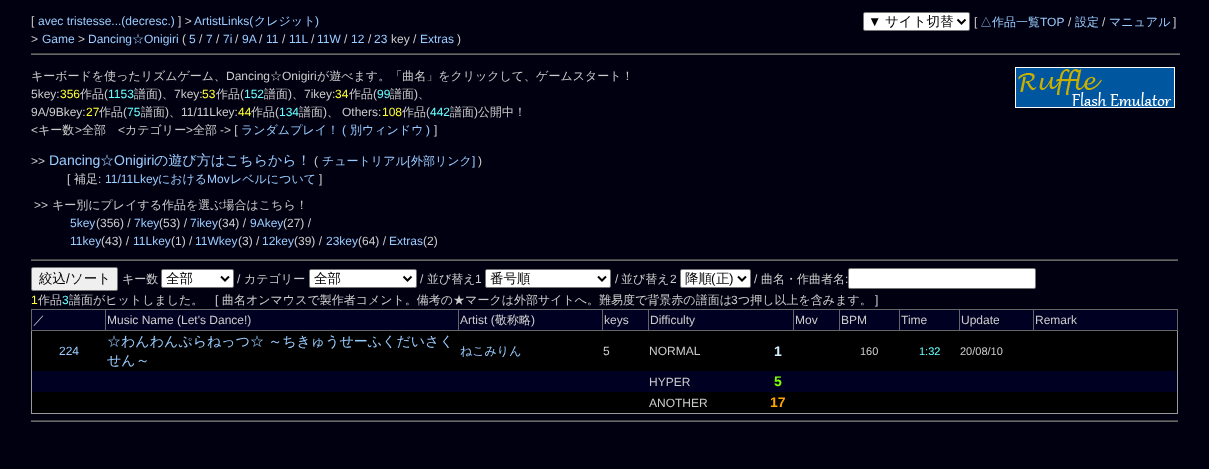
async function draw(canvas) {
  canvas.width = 1209
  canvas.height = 469
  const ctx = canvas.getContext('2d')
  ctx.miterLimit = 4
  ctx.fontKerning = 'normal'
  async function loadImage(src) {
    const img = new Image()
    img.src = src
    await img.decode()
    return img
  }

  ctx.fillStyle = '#001'
  ctx.fillRect(0, 0, 1209, 469)
  ctx.font = '12px Liberation Sans'
  ctx.fillStyle = '#ccc'
  ctx.fillText('[', 31, 25)
  ctx.fillStyle = '#9cf'
  ctx.fillText('avec tristesse...(decresc.)', 38, 25)
  ctx.fillStyle = '#ccc'
  ctx.fillText('] >', 178, 25)
  ctx.fillStyle = '#9cf'
  ctx.fillText('ArtistLinks(', 194, 25)
  ctx.font = '500 12px WenQuanYi Zen Hei'
  ctx.fillText('クレジット', 254, 25)
  ctx.font = '12px Liberation Sans'
  ctx.fillText(')', 315, 25)
  ctx.fillStyle = '#ccc'
  ctx.fillText('>', 31, 43)
  ctx.fillStyle = '#9cf'
  ctx.fillText('Game', 42, 43)
  ctx.fillStyle = '#ccc'
  ctx.fillText('>', 78, 43)
  ctx.fillStyle = '#9cf'
  ctx.fillText('Dancing', 88, 43)
  ctx.font = '500 12px WenQuanYi Zen Hei'
  ctx.fillText('☆', 132, 43)
  ctx.font = '12px Liberation Sans'
  ctx.fillText('Onigiri', 144, 43)
  ctx.fillStyle = '#ccc'
  ctx.fillText('(', 182, 43)
  ctx.fillStyle = '#9cf'
  ctx.fillText('5', 189, 43)
  ctx.fillStyle = '#ccc'
  ctx.fillText('/', 199, 43)
  ctx.fillStyle = '#9cf'
  ctx.fillText('7', 206, 43)
  ctx.fillStyle = '#ccc'
  ctx.fillText('/', 216, 43)
  ctx.fillStyle = '#9cf'
  ctx.fillText('7i', 223, 43)
  ctx.fillStyle = '#ccc'
  ctx.fillText('/', 235, 43)
  ctx.fillStyle = '#9cf'
  ctx.fillText('9A', 242, 43)
  ctx.fillStyle = '#ccc'
  ctx.fillText('/', 259, 43)
  ctx.fillStyle = '#9cf'
  ctx.fillText('11', 266, 43)
  ctx.fillStyle = '#ccc'
  ctx.fillText('/', 282, 43)
  ctx.fillStyle = '#9cf'
  ctx.fillText('11L', 289, 43)
  ctx.fillStyle = '#ccc'
  ctx.fillText('/', 311, 43)
  ctx.fillStyle = '#9cf'
  ctx.fillText('11W', 317, 43)
  ctx.fillStyle = '#ccc'
  ctx.fillText('/', 344, 43)
  ctx.fillStyle = '#9cf'
  ctx.fillText('12', 351, 43)
  ctx.fillStyle = '#ccc'
  ctx.fillText('/', 368, 43)
  ctx.fillStyle = '#9cf'
  ctx.fillText('23', 374, 43)
  ctx.fillStyle = '#ccc'
  ctx.fillText('key /', 391, 43)
  ctx.fillStyle = '#9cf'
  ctx.fillText('Extras', 420, 43)
  ctx.fillStyle = '#ccc'
  ctx.fillText(')', 457, 43)
  ctx.fillStyle = '#fff'
  ctx.beginPath()
  ctx.roundRect(863.5, 12.5, 106, 18, 1.5)
  ctx.fill()
  ctx.strokeStyle = '#767676'
  ctx.stroke()
  ctx.beginPath()
  ctx.moveTo(957.5, 19.5)
  ctx.lineTo(961.5, 23.5)
  ctx.lineTo(965.5, 19.5)
  ctx.strokeStyle = '#000'
  ctx.lineWidth = 2
  ctx.stroke()
  ctx.font = '13.5px Liberation Sans'
  ctx.fillStyle = '#000'
  ctx.fillText('▼', 868, 26)
  ctx.font = '500 13.5px WenQuanYi Zen Hei'
  ctx.fillText('サイト切替', 885, 26)
  ctx.font = '12px Liberation Sans'
  ctx.fillStyle = '#ccc'
  ctx.fillText('[', 974, 26)
  ctx.font = '500 12px WenQuanYi Zen Hei'
  ctx.fillStyle = '#9cf'
  ctx.fillText('△作品一覧', 980, 26)
  ctx.font = '12px Liberation Sans'
  ctx.fillText('TOP', 1040, 26)
  ctx.fillStyle = '#ccc'
  ctx.fillText('/', 1068, 26)
  ctx.font = '500 12px WenQuanYi Zen Hei'
  ctx.fillStyle = '#9cf'
  ctx.fillText('設定', 1075, 26)
  ctx.font = '12px Liberation Sans'
  ctx.fillStyle = '#ccc'
  ctx.fillText('/', 1102, 26)
  ctx.font = '500 12px WenQuanYi Zen Hei'
  ctx.fillStyle = '#9cf'
  ctx.fillText('マニュアル', 1109, 26)
  ctx.font = '12px Liberation Sans'
  ctx.fillStyle = '#ccc'
  ctx.fillText(']', 1173, 26)
  ctx.fillStyle = '#666'
  ctx.fillRect(31, 54, 1149, 1)
  ctx.fillStyle = '#444'
  ctx.fillRect(31, 53, 1149, 1)
  ctx.font = '500 12px WenQuanYi Zen Hei'
  ctx.fillStyle = '#ccc'
  ctx.fillText('キーボードを使ったリズムゲーム、', 31, 80)
  ctx.font = '12px Liberation Sans'
  ctx.fillText('Dancing', 226, 80)
  ctx.font = '500 12px WenQuanYi Zen Hei'
  ctx.fillText('☆', 270, 80)
  ctx.font = '12px Liberation Sans'
  ctx.fillText('Onigiri', 282, 80)
  ctx.font = '500 12px WenQuanYi Zen Hei'
  ctx.fillText('が遊べます。「曲名」をクリックして、ゲームスタート！', 317, 80)
  ctx.drawImage(await loadImage('image0.png'), 1015, 67, 160, 41)
  ctx.font = '12px Liberation Sans'
  ctx.fillText('5key:', 31, 98)
  ctx.fillStyle = '#ff3'
  ctx.fillText('356', 60, 98)
  ctx.font = '500 12px WenQuanYi Zen Hei'
  ctx.fillStyle = '#ccc'
  ctx.fillText('作品', 80, 98)
  ctx.font = '12px Liberation Sans'
  ctx.fillText('(', 104, 98)
  ctx.fillStyle = '#6ff'
  ctx.fillText('1153', 108, 98)
  ctx.font = '500 12px WenQuanYi Zen Hei'
  ctx.fillStyle = '#ccc'
  ctx.fillText('譜面', 134, 98)
  ctx.font = '12px Liberation Sans'
  ctx.fillText(')', 158, 98)
  ctx.font = '500 12px WenQuanYi Zen Hei'
  ctx.fillText('、', 162, 98)
  ctx.font = '12px Liberation Sans'
  ctx.fillText('7key:', 174, 98)
  ctx.fillStyle = '#ff3'
  ctx.fillText('53', 202, 98)
  ctx.font = '500 12px WenQuanYi Zen Hei'
  ctx.fillStyle = '#ccc'
  ctx.fillText('作品', 216, 98)
  ctx.font = '12px Liberation Sans'
  ctx.fillText('(', 240, 98)
  ctx.fillStyle = '#6ff'
  ctx.fillText('152', 244, 98)
  ctx.font = '500 12px WenQuanYi Zen Hei'
  ctx.fillStyle = '#ccc'
  ctx.fillText('譜面', 264, 98)
  ctx.font = '12px Liberation Sans'
  ctx.fillText(')', 288, 98)
  ctx.font = '500 12px WenQuanYi Zen Hei'
  ctx.fillText('、', 292, 98)
  ctx.font = '12px Liberation Sans'
  ctx.fillText('7ikey:', 304, 98)
  ctx.fillStyle = '#ff3'
  ctx.fillText('34', 335, 98)
  ctx.font = '500 12px WenQuanYi Zen Hei'
  ctx.fillStyle = '#ccc'
  ctx.fillText('作品', 349, 98)
  ctx.font = '12px Liberation Sans'
  ctx.fillText('(', 373, 98)
  ctx.fillStyle = '#6ff'
  ctx.fillText('99', 377, 98)
  ctx.font = '500 12px WenQuanYi Zen Hei'
  ctx.fillStyle = '#ccc'
  ctx.fillText('譜面', 390, 98)
  ctx.font = '12px Liberation Sans'
  ctx.fillText(')', 414, 98)
  ctx.font = '500 12px WenQuanYi Zen Hei'
  ctx.fillText('、', 418, 98)
  ctx.font = '12px Liberation Sans'
  ctx.fillText('9A/9Bkey:', 31, 116)
  ctx.fillStyle = '#ff3'
  ctx.fillText('27', 86, 116)
  ctx.font = '500 12px WenQuanYi Zen Hei'
  ctx.fillStyle = '#ccc'
  ctx.fillText('作品', 99, 116)
  ctx.font = '12px Liberation Sans'
  ctx.fillText('(', 123, 116)
  ctx.fillStyle = '#6ff'
  ctx.fillText('75', 127, 116)
  ctx.font = '500 12px WenQuanYi Zen Hei'
  ctx.fillStyle = '#ccc'
  ctx.fillText('譜面', 141, 116)
  ctx.font = '12px Liberation Sans'
  ctx.fillText(')', 165, 116)
  ctx.font = '500 12px WenQuanYi Zen Hei'
  ctx.fillText('、', 169, 116)
  ctx.font = '12px Liberation Sans'
  ctx.fillText('11/11Lkey:', 181, 116)
  ctx.fillStyle = '#ff3'
  ctx.fillText('44', 238, 116)
  ctx.font = '500 12px WenQuanYi Zen Hei'
  ctx.fillStyle = '#ccc'
  ctx.fillText('作品', 251, 116)
  ctx.font = '12px Liberation Sans'
  ctx.fillText('(', 275, 116)
  ctx.fillStyle = '#6ff'
  ctx.fillText('134', 279, 116)
  ctx.font = '500 12px WenQuanYi Zen Hei'
  ctx.fillStyle = '#ccc'
  ctx.fillText('譜面', 299, 116)
  ctx.font = '12px Liberation Sans'
  ctx.fillText(')', 323, 116)
  ctx.font = '500 12px WenQuanYi Zen Hei'
  ctx.fillText('、', 327, 116)
  ctx.font = '12px Liberation Sans'
  ctx.fillText('Others:', 342, 116)
  ctx.fillStyle = '#ff3'
  ctx.fillText('108', 382, 116)
  ctx.font = '500 12px WenQuanYi Zen Hei'
  ctx.fillStyle = '#ccc'
  ctx.fillText('作品', 402, 116)
  ctx.font = '12px Liberation Sans'
  ctx.fillText('(', 426, 116)
  ctx.fillStyle = '#6ff'
  ctx.fillText('442', 430, 116)
  ctx.font = '500 12px WenQuanYi Zen Hei'
  ctx.fillStyle = '#ccc'
  ctx.fillText('譜面', 450, 116)
  ctx.font = '12px Liberation Sans'
  ctx.fillText(')', 474, 116)
  ctx.font = '500 12px WenQuanYi Zen Hei'
  ctx.fillText('公開中！', 478, 116)
  ctx.font = '12px Liberation Sans'
  ctx.fillText('<', 31, 134)
  ctx.font = '500 12px WenQuanYi Zen Hei'
  ctx.fillText('キー数', 38, 134)
  ctx.font = '12px Liberation Sans'
  ctx.fillText('>', 75, 134)
  ctx.font = '500 12px WenQuanYi Zen Hei'
  ctx.fillText('全部', 82, 134)
  ctx.font = '12px Liberation Sans'
  ctx.fillText('<', 118, 134)
  ctx.font = '500 12px WenQuanYi Zen Hei'
  ctx.fillText('カテゴリー', 125, 134)
  ctx.font = '12px Liberation Sans'
  ctx.fillText('>', 186, 134)
  ctx.font = '500 12px WenQuanYi Zen Hei'
  ctx.fillText('全部', 193, 134)
  ctx.font = '12px Liberation Sans'
  ctx.fillText('-> [', 220, 134)
  ctx.font = '500 12px WenQuanYi Zen Hei'
  ctx.fillStyle = '#9cf'
  ctx.fillText('ランダムプレイ！', 241, 134)
  ctx.font = '12px Liberation Sans'
  ctx.fillText('(', 342, 134)
  ctx.font = '500 12px WenQuanYi Zen Hei'
  ctx.fillText('別ウィンドウ', 350, 134)
  ctx.font = '12px Liberation Sans'
  ctx.fillText(')', 426, 134)
  ctx.fillStyle = '#ccc'
  ctx.fillText(']', 434, 134)
  ctx.fillText('>>', 31, 165)
  ctx.font = '14px Liberation Sans'
  ctx.fillStyle = '#9cf'
  ctx.fillText('Dancing', 49, 165)
  ctx.font = '500 14px WenQuanYi Zen Hei'
  ctx.fillText('☆', 100, 165)
  ctx.font = '14px Liberation Sans'
  ctx.fillText('Onigiri', 114, 165)
  ctx.font = '500 14px WenQuanYi Zen Hei'
  ctx.fillText('の遊び方はこちらから！', 154, 165)
  ctx.font = '12px Liberation Sans'
  ctx.fillStyle = '#ccc'
  ctx.fillText('(', 314, 165)
  ctx.font = '500 12px WenQuanYi Zen Hei'
  ctx.fillStyle = '#9cf'
  ctx.fillText('チュートリアル', 322, 165)
  ctx.font = '12px Liberation Sans'
  ctx.fillText('[', 407, 165)
  ctx.font = '500 12px WenQuanYi Zen Hei'
  ctx.fillText('外部リンク', 411, 165)
  ctx.font = '12px Liberation Sans'
  ctx.fillText(']', 472, 165)
  ctx.fillStyle = '#ccc'
  ctx.fillText(')', 478, 165)
  ctx.fillText('[', 67, 183)
  ctx.font = '500 12px WenQuanYi Zen Hei'
  ctx.fillText('補足', 74, 183)
  ctx.font = '12px Liberation Sans'
  ctx.fillText(':', 98, 183)
  ctx.fillStyle = '#9cf'
  ctx.fillText('11/11Lkey', 105, 183)
  ctx.font = '500 12px WenQuanYi Zen Hei'
  ctx.fillText('における', 158, 183)
  ctx.font = '12px Liberation Sans'
  ctx.fillText('Mov', 207, 183)
  ctx.font = '500 12px WenQuanYi Zen Hei'
  ctx.fillText('レベルについて', 230, 183)
  ctx.font = '12px Liberation Sans'
  ctx.fillStyle = '#ccc'
  ctx.fillText(']', 319, 183)
  ctx.fillText('>>', 34, 209)
  ctx.font = '500 12px WenQuanYi Zen Hei'
  ctx.fillText('キー別にプレイする作品を選ぶ場合はこちら！', 52, 209)
  ctx.font = '12px Liberation Sans'
  ctx.fillStyle = '#9cf'
  ctx.fillText('5key', 70, 227)
  ctx.fillStyle = '#ccc'
  ctx.fillText('(356) /', 96, 227)
  ctx.fillStyle = '#9cf'
  ctx.fillText('7key', 134, 227)
  ctx.fillStyle = '#ccc'
  ctx.fillText('(53) /', 159, 227)
  ctx.fillStyle = '#9cf'
  ctx.fillText('7ikey', 190, 227)
  ctx.fillStyle = '#ccc'
  ctx.fillText('(34) /', 218, 227)
  ctx.fillStyle = '#9cf'
  ctx.fillText('9Akey', 250, 227)
  ctx.fillStyle = '#ccc'
  ctx.fillText('(27) /', 283, 227)
  ctx.fillStyle = '#9cf'
  ctx.fillText('11key', 70, 245)
  ctx.fillStyle = '#ccc'
  ctx.fillText('(43) /', 101, 245)
  ctx.fillStyle = '#9cf'
  ctx.fillText('11Lkey', 133, 245)
  ctx.fillStyle = '#ccc'
  ctx.fillText('(1) /', 171, 245)
  ctx.fillStyle = '#9cf'
  ctx.fillText('11Wkey', 195, 245)
  ctx.fillStyle = '#ccc'
  ctx.fillText('(3) /', 238, 245)
  ctx.fillStyle = '#9cf'
  ctx.fillText('12key', 262, 245)
  ctx.fillStyle = '#ccc'
  ctx.fillText('(39) /', 294, 245)
  ctx.fillStyle = '#9cf'
  ctx.fillText('23key', 326, 245)
  ctx.fillStyle = '#ccc'
  ctx.fillText('(64) /', 358, 245)
  ctx.fillStyle = '#9cf'
  ctx.fillText('Extras', 389, 245)
  ctx.fillStyle = '#ccc'
  ctx.fillText('(2)', 423, 245)
  ctx.fillStyle = '#666'
  ctx.fillRect(31, 260, 1147, 1)
  ctx.fillStyle = '#444'
  ctx.fillRect(31, 259, 1147, 1)
  ctx.fillStyle = '#efefef'
  ctx.beginPath()
  ctx.roundRect(31.5, 267.5, 86, 23, 1.5)
  ctx.fill()
  ctx.strokeStyle = '#767676'
  ctx.lineWidth = 1
  ctx.stroke()
  ctx.font = '500 13.5px WenQuanYi Zen Hei'
  ctx.fillStyle = '#000'
  ctx.fillText('絞込 ソート', 39, 283)
  ctx.font = '13.5px Liberation Sans'
  ctx.fillText('/', 66, 283)
  ctx.font = '500 12px WenQuanYi Zen Hei'
  ctx.fillStyle = '#ccc'
  ctx.fillText('キー数', 122, 283)
  ctx.fillStyle = '#fff'
  ctx.beginPath()
  ctx.roundRect(161.5, 269.5, 72, 18, 1.5)
  ctx.fill()
  ctx.stroke()
  ctx.beginPath()
  ctx.moveTo(221, 276.5)
  ctx.lineTo(225, 280.5)
  ctx.lineTo(229, 276.5)
  ctx.strokeStyle = '#000'
  ctx.lineWidth = 2
  ctx.stroke()
  ctx.font = '500 13.5px WenQuanYi Zen Hei'
  ctx.fillStyle = '#000'
  ctx.fillText('全部', 166, 283)
  ctx.font = '12px Liberation Sans'
  ctx.fillStyle = '#ccc'
  ctx.fillText('/', 237, 283)
  ctx.font = '500 12px WenQuanYi Zen Hei'
  ctx.fillText('カテゴリー', 244, 283)
  ctx.fillStyle = '#fff'
  ctx.beginPath()
  ctx.roundRect(309.5, 269.5, 107, 18, 1.5)
  ctx.fill()
  ctx.strokeStyle = '#767676'
  ctx.lineWidth = 1
  ctx.stroke()
  ctx.beginPath()
  ctx.moveTo(403.5, 276.5)
  ctx.lineTo(407.5, 280.5)
  ctx.lineTo(411.5, 276.5)
  ctx.strokeStyle = '#000'
  ctx.lineWidth = 2
  ctx.stroke()
  ctx.font = '500 13.5px WenQuanYi Zen Hei'
  ctx.fillStyle = '#000'
  ctx.fillText('全部', 314, 283)
  ctx.font = '12px Liberation Sans'
  ctx.fillStyle = '#ccc'
  ctx.fillText('/', 420, 283)
  ctx.font = '500 12px WenQuanYi Zen Hei'
  ctx.fillText('並び替え', 427, 283)
  ctx.font = '12px Liberation Sans'
  ctx.fillText('1', 475, 283)
  ctx.fillStyle = '#fff'
  ctx.beginPath()
  ctx.roundRect(485.5, 269.5, 125, 18, 1.5)
  ctx.fill()
  ctx.strokeStyle = '#767676'
  ctx.lineWidth = 1
  ctx.stroke()
  ctx.beginPath()
  ctx.moveTo(598, 276.5)
  ctx.lineTo(602, 280.5)
  ctx.lineTo(606, 276.5)
  ctx.strokeStyle = '#000'
  ctx.lineWidth = 2
  ctx.stroke()
  ctx.font = '500 13.5px WenQuanYi Zen Hei'
  ctx.fillStyle = '#000'
  ctx.fillText('番号順', 490, 283)
  ctx.font = '12px Liberation Sans'
  ctx.fillStyle = '#ccc'
  ctx.fillText('/', 615, 283)
  ctx.font = '500 12px WenQuanYi Zen Hei'
  ctx.fillText('並び替え', 621, 283)
  ctx.font = '12px Liberation Sans'
  ctx.fillText('2', 670, 283)
  ctx.fillStyle = '#fff'
  ctx.beginPath()
  ctx.roundRect(680.5, 269.5, 70, 18, 1.5)
  ctx.fill()
  ctx.strokeStyle = '#767676'
  ctx.lineWidth = 1
  ctx.stroke()
  ctx.beginPath()
  ctx.moveTo(738, 276.5)
  ctx.lineTo(742, 280.5)
  ctx.lineTo(746, 276.5)
  ctx.strokeStyle = '#000'
  ctx.lineWidth = 2
  ctx.stroke()
  ctx.font = '500 13.5px WenQuanYi Zen Hei'
  ctx.fillStyle = '#000'
  ctx.fillText('降順', 685, 283)
  ctx.font = '13.5px Liberation Sans'
  ctx.fillText('(', 711, 283)
  ctx.font = '500 13.5px WenQuanYi Zen Hei'
  ctx.fillText('正', 716, 283)
  ctx.font = '13.5px Liberation Sans'
  ctx.fillText(')', 729, 283)
  ctx.font = '12px Liberation Sans'
  ctx.fillStyle = '#ccc'
  ctx.fillText('/', 754, 283)
  ctx.font = '500 12px WenQuanYi Zen Hei'
  ctx.fillText('曲名・作曲者名', 761, 283)
  ctx.font = '12px Liberation Sans'
  ctx.fillText(':', 845, 283)
  ctx.fillStyle = '#fff'
  ctx.beginPath()
  ctx.roundRect(848.5, 268.5, 187, 20, 1.5)
  ctx.fill()
  ctx.strokeStyle = '#767676'
  ctx.lineWidth = 1
  ctx.stroke()
  ctx.fillStyle = '#ff3'
  ctx.fillText('1', 31, 304)
  ctx.font = '500 12px WenQuanYi Zen Hei'
  ctx.fillStyle = '#ccc'
  ctx.fillText('作品', 38, 304)
  ctx.font = '12px Liberation Sans'
  ctx.fillStyle = '#6ff'
  ctx.fillText('3', 62, 304)
  ctx.font = '500 12px WenQuanYi Zen Hei'
  ctx.fillStyle = '#ccc'
  ctx.fillText('譜面がヒットしました。', 69, 304)
  ctx.font = '12px Liberation Sans'
  ctx.fillText('[', 215, 304)
  ctx.font = '500 12px WenQuanYi Zen Hei'
  ctx.fillText('曲名オンマウスで製作者コメント。備考の★マークは外部サイトへ。難易度で背景赤の譜面は', 222, 304)
  ctx.font = '12px Liberation Sans'
  ctx.fillText('3', 731, 304)
  ctx.font = '500 12px WenQuanYi Zen Hei'
  ctx.fillText('つ押し以上を含みます。', 738, 304)
  ctx.font = '12px Liberation Sans'
  ctx.fillText(']', 875, 304)
  ctx.fillStyle = '#999'
  ctx.fillRect(1177, 331, 1, 83)
  ctx.fillRect(31, 413, 1147, 1)
  ctx.fillRect(31, 331, 1, 83)
  ctx.fillStyle = '#002'
  ctx.fillRect(32, 310, 73, 20)
  ctx.fillStyle = '#666'
  ctx.fillRect(1033, 309, 145, 1)
  ctx.fillRect(1177, 309, 1, 22)
  ctx.fillRect(1033, 330, 145, 1)
  ctx.fillRect(1033, 309, 1, 22)
  ctx.fillRect(959, 309, 75, 1)
  ctx.fillRect(959, 330, 75, 1)
  ctx.fillRect(959, 309, 1, 22)
  ctx.fillRect(899, 309, 61, 1)
  ctx.fillRect(899, 330, 61, 1)
  ctx.fillRect(899, 309, 1, 22)
  ctx.fillRect(839, 309, 61, 1)
  ctx.fillRect(839, 330, 61, 1)
  ctx.fillRect(839, 309, 1, 22)
  ctx.fillRect(793, 309, 47, 1)
  ctx.fillRect(793, 330, 47, 1)
  ctx.fillRect(793, 309, 1, 22)
  ctx.fillRect(648, 309, 146, 1)
  ctx.fillRect(648, 330, 146, 1)
  ctx.fillRect(648, 309, 1, 22)
  ctx.fillRect(602, 309, 47, 1)
  ctx.fillRect(602, 330, 47, 1)
  ctx.fillRect(602, 309, 1, 22)
  ctx.fillRect(458, 309, 145, 1)
  ctx.fillRect(458, 330, 145, 1)
  ctx.fillRect(458, 309, 1, 22)
  ctx.fillRect(105, 309, 354, 1)
  ctx.fillRect(105, 330, 354, 1)
  ctx.fillRect(105, 309, 1, 22)
  ctx.fillRect(31, 309, 75, 1)
  ctx.fillRect(31, 330, 75, 1)
  ctx.fillRect(31, 309, 1, 22)
  ctx.font = '500 12px WenQuanYi Zen Hei'
  ctx.fillStyle = '#ccc'
  ctx.fillText('／', 33, 324)
  ctx.fillStyle = '#002'
  ctx.fillRect(106, 310, 352, 20)
  ctx.font = '12px Liberation Sans'
  ctx.fillStyle = '#ccc'
  ctx.fillText('Music Name (Let\'s Dance!)', 107, 324)
  ctx.fillStyle = '#002'
  ctx.fillRect(459, 310, 143, 20)
  ctx.fillStyle = '#ccc'
  ctx.fillText('Artist (', 460, 324)
  ctx.font = '500 12px WenQuanYi Zen Hei'
  ctx.fillText('敬称略', 495, 324)
  ctx.font = '12px Liberation Sans'
  ctx.fillText(')', 531, 324)
  ctx.fillStyle = '#002'
  ctx.fillRect(603, 310, 45, 20)
  ctx.fillStyle = '#ccc'
  ctx.fillText('keys', 604, 324)
  ctx.fillStyle = '#002'
  ctx.fillRect(649, 310, 144, 20)
  ctx.fillStyle = '#ccc'
  ctx.fillText('Difficulty', 650, 324)
  ctx.fillStyle = '#002'
  ctx.fillRect(794, 310, 45, 20)
  ctx.fillStyle = '#ccc'
  ctx.fillText('Mov', 795, 324)
  ctx.fillStyle = '#002'
  ctx.fillRect(840, 310, 59, 20)
  ctx.fillStyle = '#ccc'
  ctx.fillText('BPM', 841, 324)
  ctx.fillStyle = '#002'
  ctx.fillRect(900, 310, 59, 20)
  ctx.fillStyle = '#ccc'
  ctx.fillText('Time', 901, 324)
  ctx.fillStyle = '#002'
  ctx.fillRect(960, 310, 73, 20)
  ctx.fillStyle = '#ccc'
  ctx.fillText('Update', 961, 324)
  ctx.fillStyle = '#002'
  ctx.fillRect(1034, 310, 143, 20)
  ctx.fillStyle = '#ccc'
  ctx.fillText('Remark', 1035, 324)
  ctx.fillStyle = '#000'
  ctx.fillRect(32, 331, 1145, 40)
  ctx.fillStyle = '#9cf'
  ctx.fillText('224', 59, 355)
  ctx.font = '500 14px WenQuanYi Zen Hei'
  ctx.fillText('☆わんわんぷらねっつ☆ ～ちきゅうせーふくだいさく', 107, 346)
  ctx.fillText('せん～', 107, 365)
  ctx.font = '500 12px WenQuanYi Zen Hei'
  ctx.fillText('ねこみりん', 460, 355)
  ctx.font = '12px Liberation Sans'
  ctx.fillStyle = '#ccc'
  ctx.fillText('5', 603, 355)
  ctx.fillText('NORMAL', 649, 355)
  ctx.font = 'bold 14px Liberation Sans'
  ctx.fillStyle = '#d5f0fa'
  ctx.fillText('1', 774, 356)
  ctx.font = '11px Liberation Sans'
  ctx.fillStyle = '#ccc'
  ctx.fillText('160', 860, 355)
  ctx.fillStyle = '#6ff'
  ctx.fillText('1:32', 919, 355)
  ctx.fillStyle = '#ccc'
  ctx.fillText('20/08/10', 960, 355)
  ctx.fillStyle = '#002'
  ctx.fillRect(32, 371, 1145, 21)
  ctx.font = '12px Liberation Sans'
  ctx.fillStyle = '#ccc'
  ctx.fillText('HYPER', 649, 386)
  ctx.font = 'bold 14px Liberation Sans'
  ctx.fillStyle = '#7fff00'
  ctx.fillText('5', 774, 386)
  ctx.fillStyle = '#000'
  ctx.fillRect(32, 392, 1145, 21)
  ctx.font = '12px Liberation Sans'
  ctx.fillStyle = '#ccc'
  ctx.fillText('ANOTHER', 649, 407)
  ctx.font = 'bold 14px Liberation Sans'
  ctx.fillStyle = '#ffa500'
  ctx.fillText('17', 770, 407)
  ctx.fillStyle = '#666'
  ctx.fillRect(31, 421, 1147, 1)
  ctx.fillStyle = '#444'
  ctx.fillRect(31, 420, 1147, 1)
}

draw(document.querySelector('canvas'))
